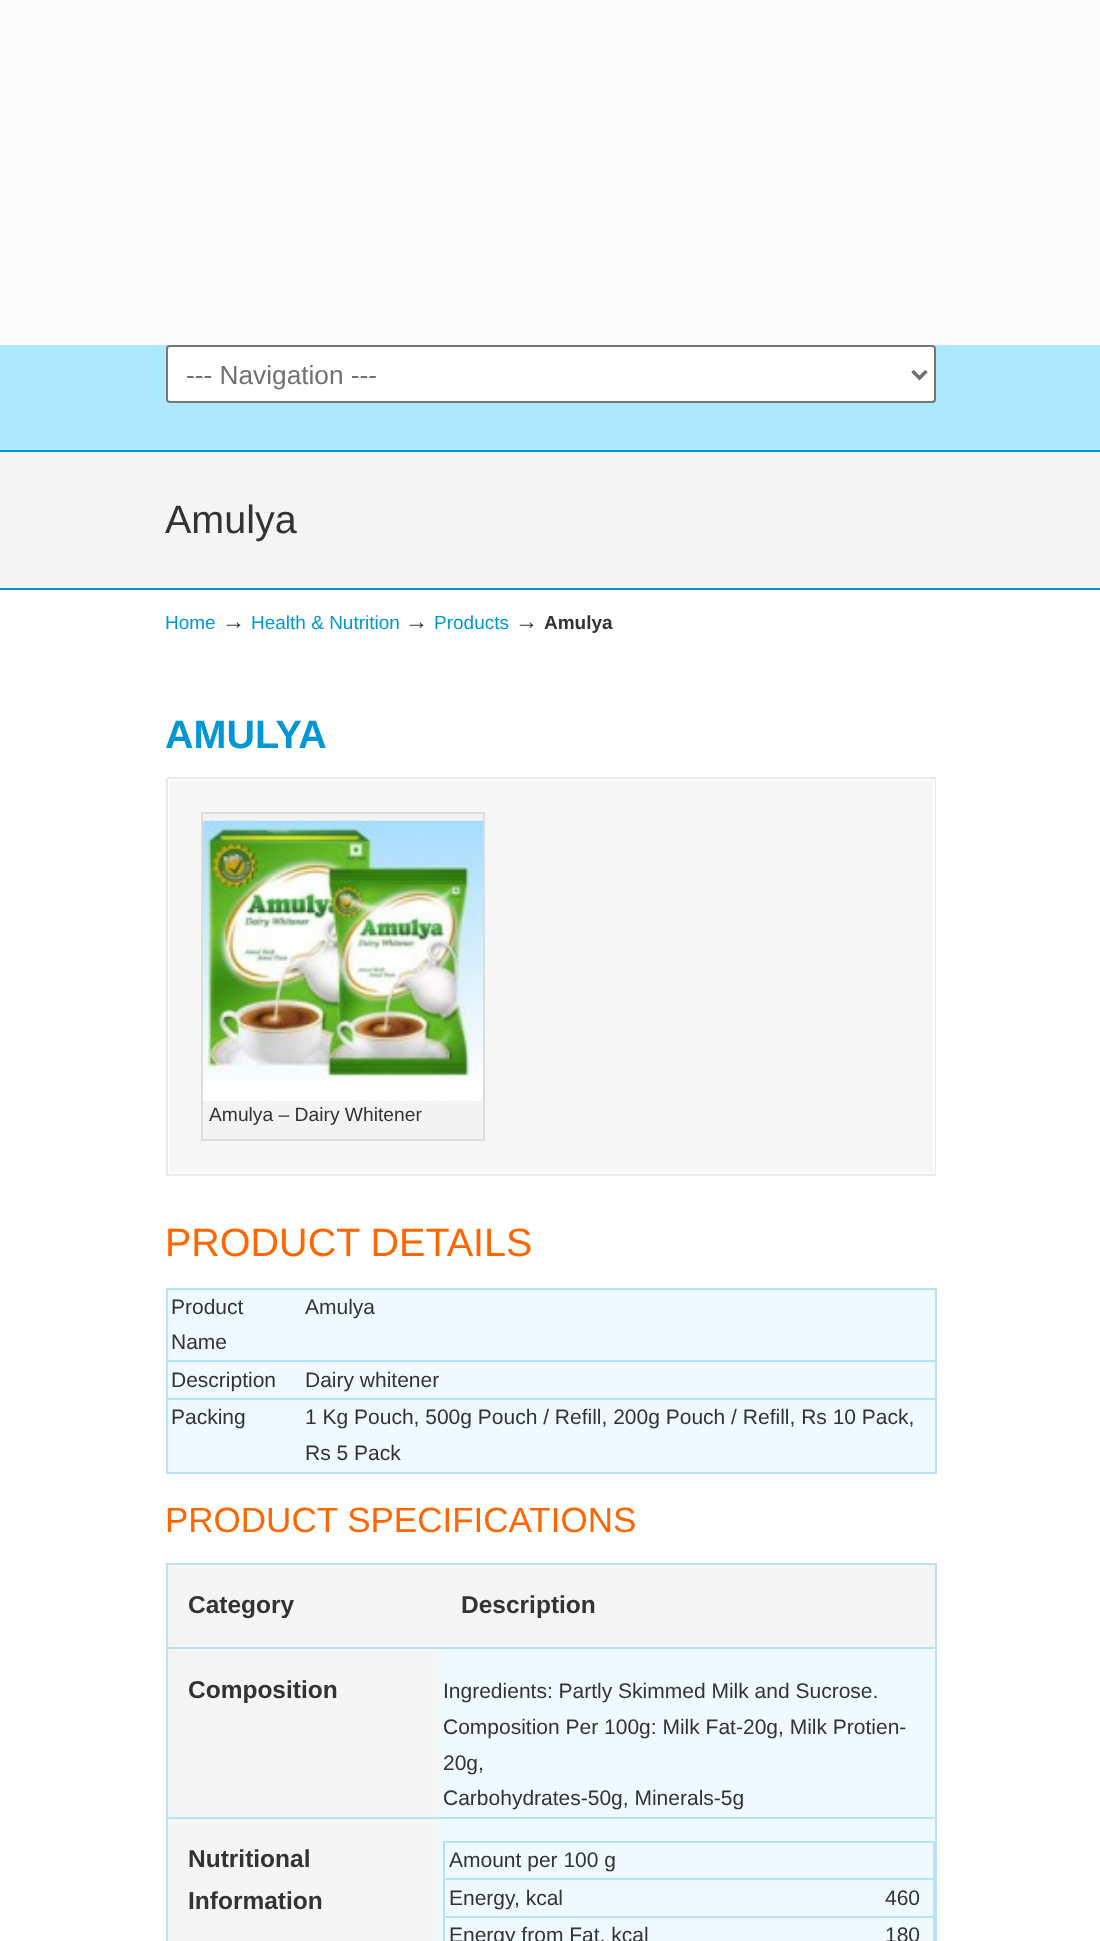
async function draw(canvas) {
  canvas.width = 1100
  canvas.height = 1941
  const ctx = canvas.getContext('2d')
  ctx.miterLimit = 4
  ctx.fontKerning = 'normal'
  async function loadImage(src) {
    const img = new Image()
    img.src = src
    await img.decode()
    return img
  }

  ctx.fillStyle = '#fbfbfb'
  ctx.fillRect(0, 0, 1100, 1941)
  ctx.fillStyle = '#0197d4'
  ctx.fillRect(0, 450, 1100, 2)
  ctx.fillStyle = '#aee9ff'
  ctx.fillRect(0, 345, 1100, 105)
  ctx.fillStyle = '#fff'
  ctx.beginPath()
  ctx.roundRect(167, 346, 768, 56, 3)
  ctx.fill()
  ctx.strokeStyle = '#767676'
  ctx.lineWidth = 2
  ctx.stroke()
  ctx.beginPath()
  ctx.moveTo(912.5, 371)
  ctx.lineTo(919.5, 378)
  ctx.lineTo(926.5, 371)
  ctx.strokeStyle = '#717171'
  ctx.lineWidth = 3.5
  ctx.stroke()
  ctx.font = '26.25px Liberation Sans'
  ctx.fillStyle = '#717171'
  ctx.fillText('--- Navigation ---', 186, 384)
  ctx.fillStyle = '#f5f5f5'
  ctx.fillRect(0, 452, 1100, 136)
  ctx.fillStyle = '#0197d4'
  ctx.fillRect(0, 588, 1100, 2)
  ctx.font = '39.5px Liberation Sans'
  ctx.fillStyle = '#333'
  ctx.fillText('Amulya', 165, 533)
  ctx.fillStyle = '#fff'
  ctx.fillRect(0, 590, 1100, 1351)
  ctx.font = '19px Liberation Sans'
  ctx.fillStyle = '#0197d4'
  ctx.fillText('Home', 165, 629)
  ctx.font = '23px Liberation Sans'
  ctx.fillStyle = '#333'
  ctx.fillText('→', 222, 629)
  ctx.font = '19px Liberation Sans'
  ctx.fillStyle = '#0197d4'
  ctx.fillText('Health & Nutrition', 251, 629)
  ctx.font = '23px Liberation Sans'
  ctx.fillStyle = '#333'
  ctx.fillText('→', 405, 629)
  ctx.font = '19px Liberation Sans'
  ctx.fillStyle = '#0197d4'
  ctx.fillText('Products', 434, 629)
  ctx.font = '23px Liberation Sans'
  ctx.fillStyle = '#333'
  ctx.fillText('→', 515, 629)
  ctx.font = 'bold 19px Liberation Sans'
  ctx.fillText('Amulya', 544, 629)
  ctx.font = 'bold 39.5px Liberation Sans'
  ctx.fillStyle = '#0197d4'
  ctx.fillText('AMULYA', 165, 748)
  ctx.fillStyle = '#f6f6f6'
  ctx.fillRect(170, 781, 763, 391)
  ctx.strokeStyle = '#eaeaea'
  ctx.lineWidth = 2
  ctx.strokeRect(167, 778, 768, 397)
  ctx.strokeStyle = '#fff'
  ctx.strokeRect(169, 780, 765, 393)
  ctx.fillStyle = '#f3f3f3'
  ctx.beginPath()
  ctx.rect(202, 813, 282, 327)
  ctx.fill()
  ctx.strokeStyle = '#ddd'
  ctx.stroke()
  ctx.drawImage(await loadImage('image0.png'), 203, 820, 280, 281)
  ctx.font = '19.25px Liberation Sans'
  ctx.fillStyle = '#333'
  ctx.fillText('Amulya – Dairy Whitener', 209, 1121)
  ctx.font = '39.5px Liberation Sans'
  ctx.fillStyle = '#f60'
  ctx.fillText('PRODUCT DETAILS', 165, 1256)
  ctx.fillStyle = '#b8e3f5'
  ctx.fillRect(166, 1288, 770, 2)
  ctx.fillRect(935, 1288, 2, 186)
  ctx.fillRect(166, 1472, 770, 2)
  ctx.fillRect(166, 1288, 2, 186)
  ctx.fillStyle = '#eefaff'
  ctx.fillRect(168, 1290, 767, 70)
  ctx.font = '21px Liberation Sans'
  ctx.fillStyle = '#333'
  ctx.fillText('Product', 171, 1314)
  ctx.fillText('Name', 171, 1349)
  ctx.fillText('Amulya', 305, 1314)
  ctx.fillStyle = '#eefaff'
  ctx.fillRect(168, 1362, 767, 36)
  ctx.fillStyle = '#333'
  ctx.fillText('Description', 171, 1387)
  ctx.fillStyle = '#b8e3f5'
  ctx.fillRect(166, 1360, 770, 2)
  ctx.fillStyle = '#333'
  ctx.fillText('Dairy whitener', 305, 1387)
  ctx.fillStyle = '#eefaff'
  ctx.fillRect(168, 1400, 767, 72)
  ctx.fillStyle = '#333'
  ctx.fillText('Packing', 171, 1424)
  ctx.fillStyle = '#b8e3f5'
  ctx.fillRect(166, 1398, 770, 2)
  ctx.fillStyle = '#333'
  ctx.fillText('1 Kg Pouch, 500g Pouch / Refill, 200g Pouch / Refill, Rs 10 Pack,', 305, 1424)
  ctx.fillText('Rs 5 Pack', 305, 1460)
  ctx.font = '35px Liberation Sans'
  ctx.fillStyle = '#f60'
  ctx.fillText('PRODUCT SPECIFICATIONS', 165, 1532)
  ctx.fillStyle = '#b8e3f5'
  ctx.fillRect(166, 1563, 770, 2)
  ctx.fillRect(935, 1563, 2, 378)
  ctx.fillRect(166, 1563, 2, 378)
  ctx.fillStyle = '#f5f5f5'
  ctx.fillRect(168, 1565, 767, 82)
  ctx.font = 'bold 24.5px Liberation Sans'
  ctx.fillStyle = '#333'
  ctx.fillText('Category', 188, 1613)
  ctx.fillText('Description', 461, 1613)
  ctx.fillStyle = '#f5f5f5'
  ctx.fillRect(168, 1649, 271, 168)
  ctx.fillStyle = '#333'
  ctx.fillText('Composition', 188, 1698)
  ctx.fillStyle = '#eefaff'
  ctx.fillRect(439, 1649, 496, 168)
  ctx.fillStyle = '#b8e3f5'
  ctx.fillRect(166, 1647, 770, 2)
  ctx.font = '21px Liberation Sans'
  ctx.fillStyle = '#333'
  ctx.fillText('Ingredients: Partly Skimmed Milk and Sucrose.', 443, 1698)
  ctx.fillText('Composition Per 100g: Milk Fat-20g, Milk Protien-', 443, 1734)
  ctx.fillText('20g,', 443, 1770)
  ctx.fillText('Carbohydrates-50g, Minerals-5g', 443, 1805)
  ctx.fillStyle = '#f5f5f5'
  ctx.fillRect(168, 1819, 271, 122)
  ctx.font = 'bold 24.5px Liberation Sans'
  ctx.fillStyle = '#333'
  ctx.fillText('Nutritional', 188, 1867)
  ctx.fillText('Information', 188, 1909)
  ctx.fillStyle = '#eefaff'
  ctx.fillRect(439, 1819, 496, 122)
  ctx.fillStyle = '#b8e3f5'
  ctx.fillRect(166, 1817, 770, 2)
  ctx.fillRect(443, 1841, 492, 2)
  ctx.fillRect(933, 1841, 2, 100)
  ctx.fillRect(443, 1841, 2, 100)
  ctx.font = '21px Liberation Sans'
  ctx.fillStyle = '#333'
  ctx.fillText('Amount per 100 g', 449, 1867)
  ctx.fillText('Energy, kcal', 449, 1905)
  ctx.fillStyle = '#b8e3f5'
  ctx.fillRect(443, 1878, 492, 2)
  ctx.fillStyle = '#333'
  ctx.fillText('460', 885, 1905)
  ctx.fillText('Energy from Fat, kcal', 449, 1942)
  ctx.fillStyle = '#b8e3f5'
  ctx.fillRect(443, 1916, 492, 2)
  ctx.fillStyle = '#333'
  ctx.fillText('180', 885, 1942)
}

draw(document.querySelector('canvas'))
